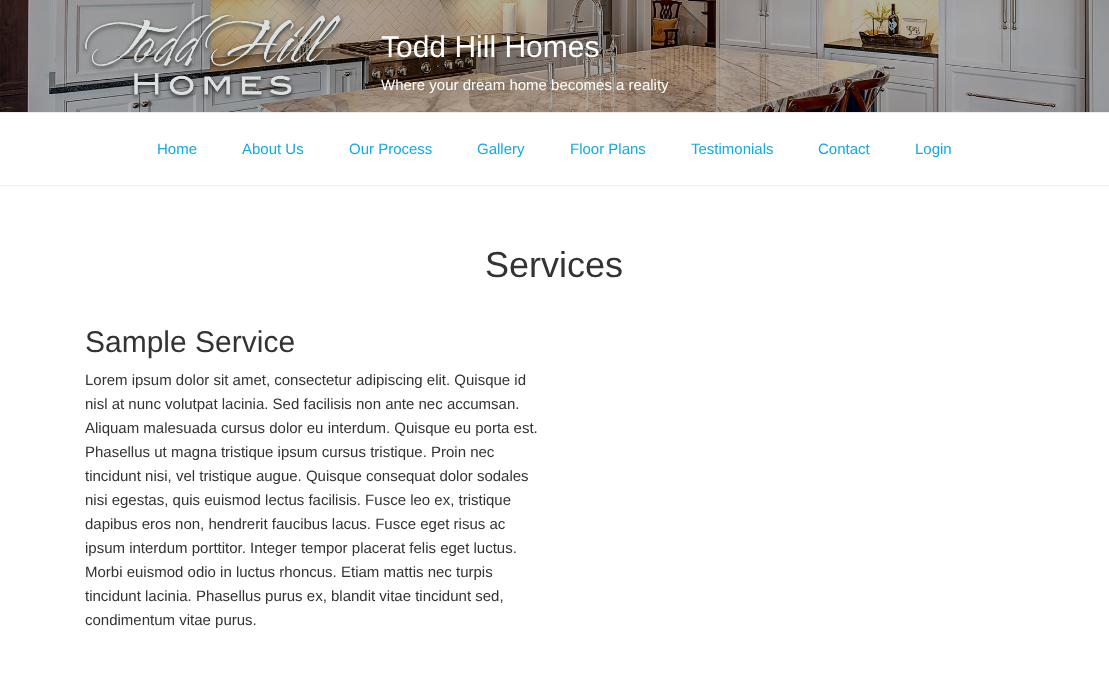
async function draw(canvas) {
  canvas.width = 1109
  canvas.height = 689
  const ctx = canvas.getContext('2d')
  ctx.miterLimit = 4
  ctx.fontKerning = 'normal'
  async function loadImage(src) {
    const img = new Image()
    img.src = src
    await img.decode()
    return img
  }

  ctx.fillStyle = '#fff'
  ctx.fillRect(0, 0, 1109, 689)
  ctx.drawImage(await loadImage('image0.png'), 0, 0, 1109, 112)
  ctx.drawImage(await loadImage('image1.png'), 81, 13, 263, 88)
  ctx.font = '30px Liberation Sans'
  ctx.fillText('Todd Hill Homes', 381, 57)
  ctx.font = '15px Liberation Sans'
  ctx.fillText('Where your dream home becomes a reality', 381, 90)
  ctx.fillStyle = '#ececec'
  ctx.fillRect(0, 112, 1109, 1)
  ctx.fillRect(0, 185, 1109, 1)
  ctx.fillStyle = '#13a9e1'
  ctx.fillText('Home', 157, 154)
  ctx.fillText('About Us', 242, 154)
  ctx.fillText('Our Process', 349, 154)
  ctx.fillText('Gallery', 477, 154)
  ctx.fillText('Floor Plans', 570, 154)
  ctx.fillText('Testimonials', 691, 154)
  ctx.fillText('Contact', 818, 154)
  ctx.fillText('Login', 915, 154)
  ctx.font = '36px Liberation Sans'
  ctx.fillStyle = '#333'
  ctx.fillText('Services', 485, 277)
  ctx.font = '30px Liberation Sans'
  ctx.fillText('Sample Service', 85, 352)
  ctx.font = '15px Liberation Sans'
  ctx.fillText('Lorem ipsum dolor sit amet, consectetur adipiscing elit. Quisque id', 85, 385)
  ctx.fillText('nisl at nunc volutpat lacinia. Sed facilisis non ante nec accumsan.', 85, 409)
  ctx.fillText('Aliquam malesuada cursus dolor eu interdum. Quisque eu porta est.', 85, 433)
  ctx.fillText('Phasellus ut magna tristique ipsum cursus tristique. Proin nec', 85, 457)
  ctx.fillText('tincidunt nisi, vel tristique augue. Quisque consequat dolor sodales', 85, 481)
  ctx.fillText('nisi egestas, quis euismod lectus facilisis. Fusce leo ex, tristique', 85, 505)
  ctx.fillText('dapibus eros non, hendrerit faucibus lacus. Fusce eget risus ac', 85, 529)
  ctx.fillText('ipsum interdum porttitor. Integer tempor placerat felis eget luctus.', 85, 553)
  ctx.fillText('Morbi euismod odio in luctus rhoncus. Etiam mattis nec turpis', 85, 577)
  ctx.fillText('tincidunt lacinia. Phasellus purus ex, blandit vitae tincidunt sed,', 85, 601)
  ctx.fillText('condimentum vitae purus.', 85, 625)
}

draw(document.querySelector('canvas'))
